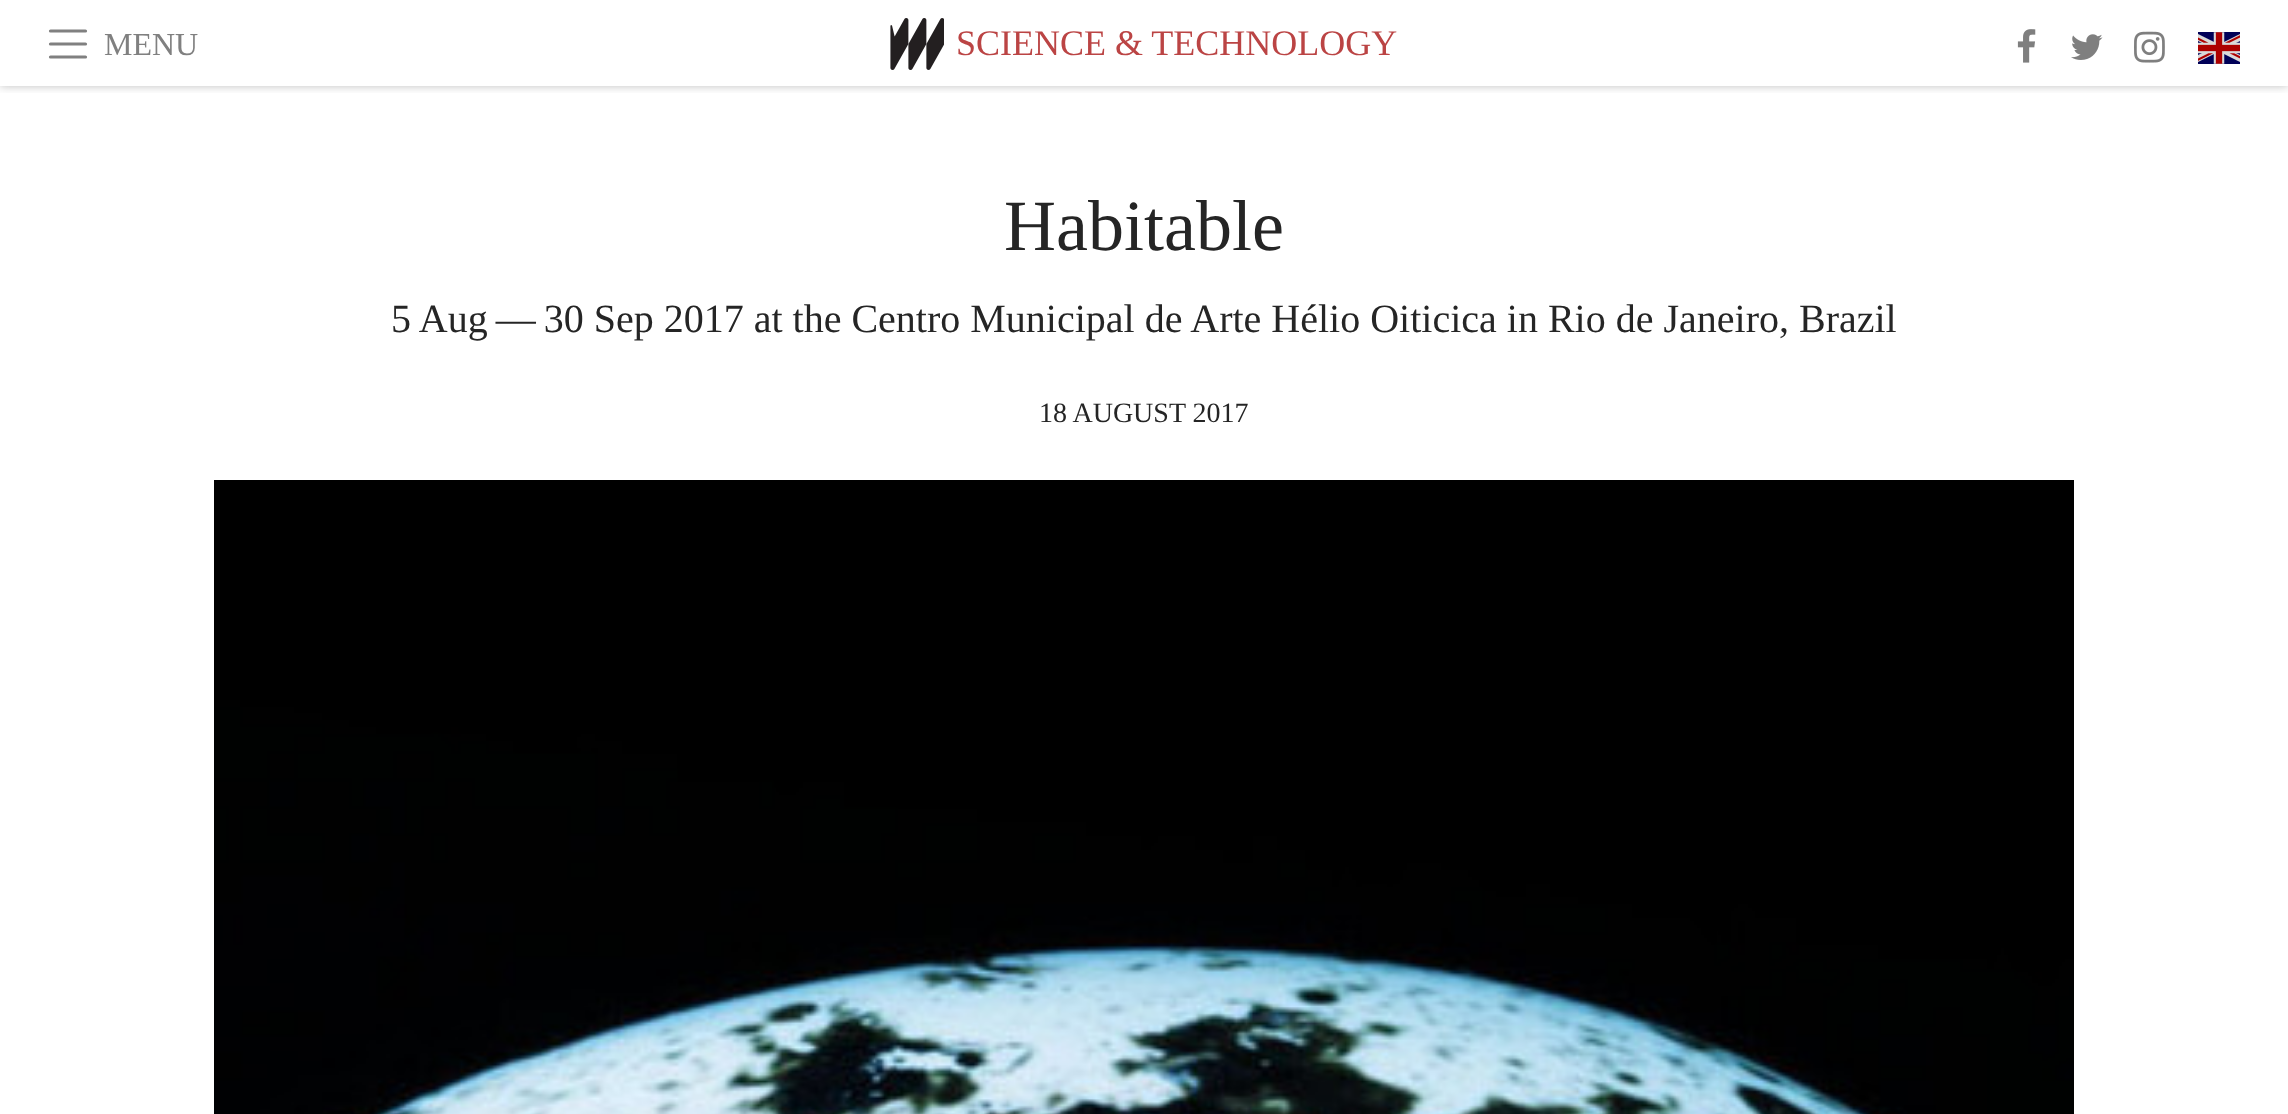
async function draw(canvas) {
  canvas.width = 2288
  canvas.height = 1114
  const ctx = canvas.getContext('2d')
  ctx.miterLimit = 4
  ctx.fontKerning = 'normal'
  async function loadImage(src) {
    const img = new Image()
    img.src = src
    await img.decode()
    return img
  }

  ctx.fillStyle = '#fff'
  ctx.fillRect(0, 0, 2288, 1114)
  ctx.save()
  ctx.beginPath()
  ctx.rect(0, 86, 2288, 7)
  ctx.clip()
  ctx.fillStyle = '#00000040'
  ctx.filter = 'blur(5px)'
  ctx.beginPath()
  ctx.rect(0, 0, 2288, 86)
  ctx.fill()
  ctx.filter = 'none'
  ctx.restore()
  ctx.beginPath()
  ctx.moveTo(50.5, 31)
  ctx.lineTo(85.5, 31)
  ctx.moveTo(50.5, 44)
  ctx.lineTo(85.5, 44)
  ctx.moveTo(50.5, 57)
  ctx.lineTo(85.5, 57)
  ctx.strokeStyle = '#808080'
  ctx.lineWidth = 3.2
  ctx.lineCap = 'round'
  ctx.stroke()
  ctx.font = '32px Liberation Serif'
  ctx.fillStyle = '#808080'
  ctx.fillText('MENU', 104, 55)
  ctx.drawImage(await loadImage('image0.png'), 890, 18, 54, 52)
  ctx.font = '36px Liberation Serif'
  ctx.fillStyle = '#b44'
  ctx.fillText('SCIENCE & TECHNOLOGY', 956, 55)
  ctx.drawImage(await loadImage('image1.png'), 2017, 29, 19, 34)
  ctx.drawImage(await loadImage('image2.png'), 2071, 34, 32, 26)
  ctx.drawImage(await loadImage('image3.png'), 2134, 31, 31, 32)
  ctx.drawImage(await loadImage('image4.png'), 2198, 32, 42, 32)
  ctx.font = '72px Liberation Serif'
  ctx.fillStyle = '#252525'
  ctx.fillText('Habitable', 1004, 250)
  ctx.font = '40px Liberation Serif'
  ctx.fillText('5 Aug — 30 Sep 2017 at the Centro Municipal de Arte Hélio Oiticica in Rio de Janeiro, Brazil', 391, 332)
  ctx.font = '28px Liberation Serif'
  ctx.fillText('18 AUGUST 2017', 1039, 422)
  ctx.drawImage(await loadImage('image5.png'), 214, 480, 1860, 634)
}

draw(document.querySelector('canvas'))
